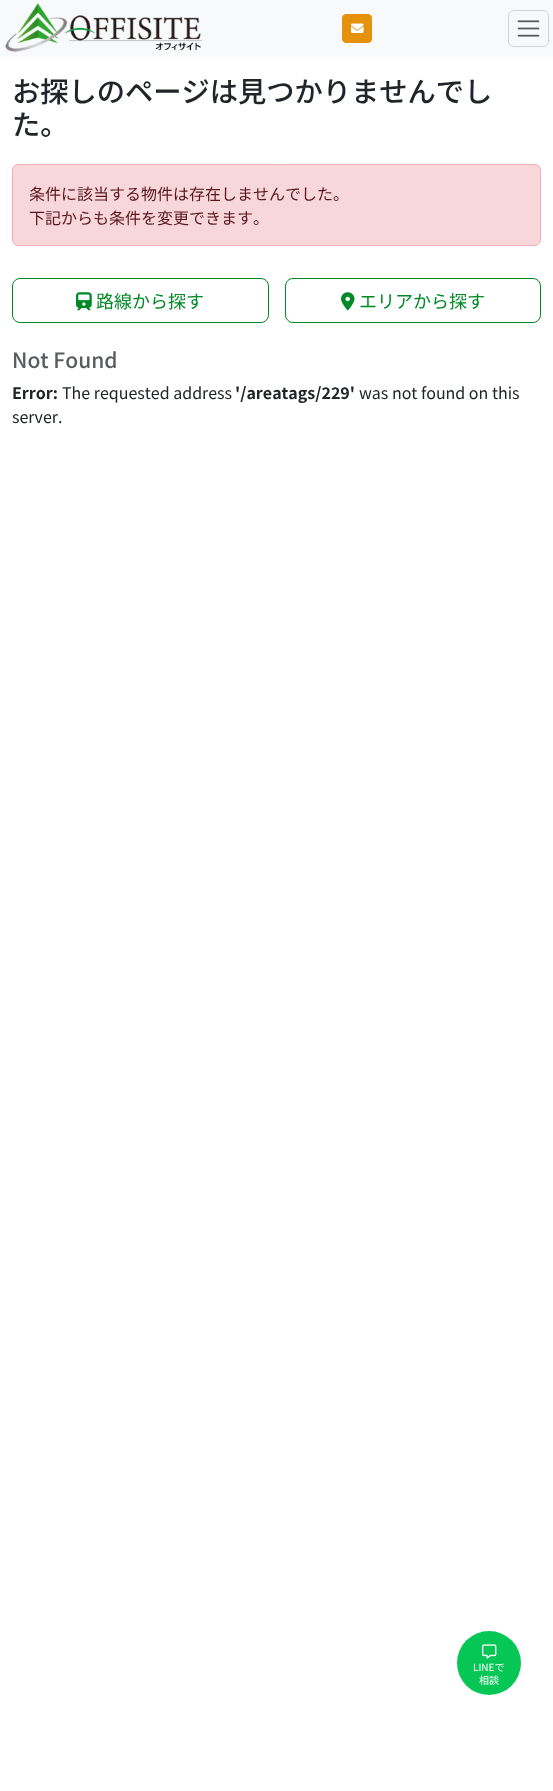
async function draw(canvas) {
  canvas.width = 553
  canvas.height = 1791
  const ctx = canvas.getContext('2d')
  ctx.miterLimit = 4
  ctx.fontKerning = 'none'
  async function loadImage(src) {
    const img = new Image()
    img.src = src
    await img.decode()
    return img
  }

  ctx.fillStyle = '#fff'
  ctx.fillRect(0, 0, 553, 1791)
  ctx.fillStyle = '#f8f9fa'
  ctx.fillRect(0, 0, 553, 57)
  ctx.drawImage(await loadImage('image0.png'), 5, 3, 197, 49)
  ctx.fillStyle = '#e5910c'
  ctx.beginPath()
  ctx.roundRect(342.5, 14.5, 29, 28, 3.5)
  ctx.fill()
  ctx.strokeStyle = '#e5910c'
  ctx.stroke()
  ctx.drawImage(await loadImage('image1.png'), 351, 23, 13, 10)
  ctx.beginPath()
  ctx.roundRect(508.5, 10.5, 40, 36, 5.5)
  ctx.strokeStyle = '#d3d4d5'
  ctx.stroke()
  ctx.drawImage(await loadImage('image2.png'), 517, 20, 23, 17)
  ctx.font = '500 28.25px Noto Sans JP'
  ctx.fillStyle = '#212529'
  ctx.fillText('お探しのページは見つかりませんでし', 12, 102)
  ctx.fillText('た。', 12, 135)
  ctx.fillStyle = '#f8d7da'
  ctx.beginPath()
  ctx.roundRect(12.5, 164.5, 528, 81, 5.5)
  ctx.fill()
  ctx.strokeStyle = '#f1aeb5'
  ctx.stroke()
  ctx.font = '16px Noto Sans JP'
  ctx.fillStyle = '#58151c'
  ctx.fillText('条件に該当する物件は存在しませんでした。', 29, 200)
  ctx.fillText('下記からも条件を変更できます。', 29, 224)
  ctx.beginPath()
  ctx.roundRect(12.5, 278.5, 256, 44, 7.5)
  ctx.strokeStyle = '#008927'
  ctx.stroke()
  ctx.drawImage(await loadImage('image3.png'), 76, 292, 16, 19)
  ctx.font = '18px Noto Sans JP'
  ctx.fillStyle = '#008927'
  ctx.fillText('路線から探す', 96, 308)
  ctx.beginPath()
  ctx.roundRect(285.5, 278.5, 255, 44, 7.5)
  ctx.stroke()
  ctx.drawImage(await loadImage('image4.png'), 341, 292, 14, 19)
  ctx.fillText('エリアから探す', 359, 308)
  ctx.font = '500 21px Noto Sans JP'
  ctx.fillStyle = '#595c5f'
  ctx.fillText('Not Found', 12, 368)
  ctx.font = 'bold 16px Noto Sans JP'
  ctx.fillStyle = '#212529'
  ctx.fillText('Error:', 12, 399)
  ctx.font = '16px Noto Sans JP'
  ctx.fillText('The requested address', 62, 399)
  ctx.font = 'bold 16px Noto Sans JP'
  ctx.fillText('\'/areatags/229\'', 235, 399)
  ctx.font = '16px Noto Sans JP'
  ctx.fillText('was not found on this', 359, 399)
  ctx.fillText('server.', 12, 423)
  ctx.fillStyle = '#06c755'
  ctx.beginPath()
  ctx.arc(489, 1663, 32, 0, 2 * Math.PI)
  ctx.fill()
  ctx.drawImage(await loadImage('image5.png'), 482, 1644, 15, 15)
  ctx.font = '10px Noto Sans JP'
  ctx.fillStyle = '#fff'
  ctx.fillText('LINEで', 473, 1671)
  ctx.fillText('相談', 479, 1684)
}

draw(document.querySelector('canvas'))
